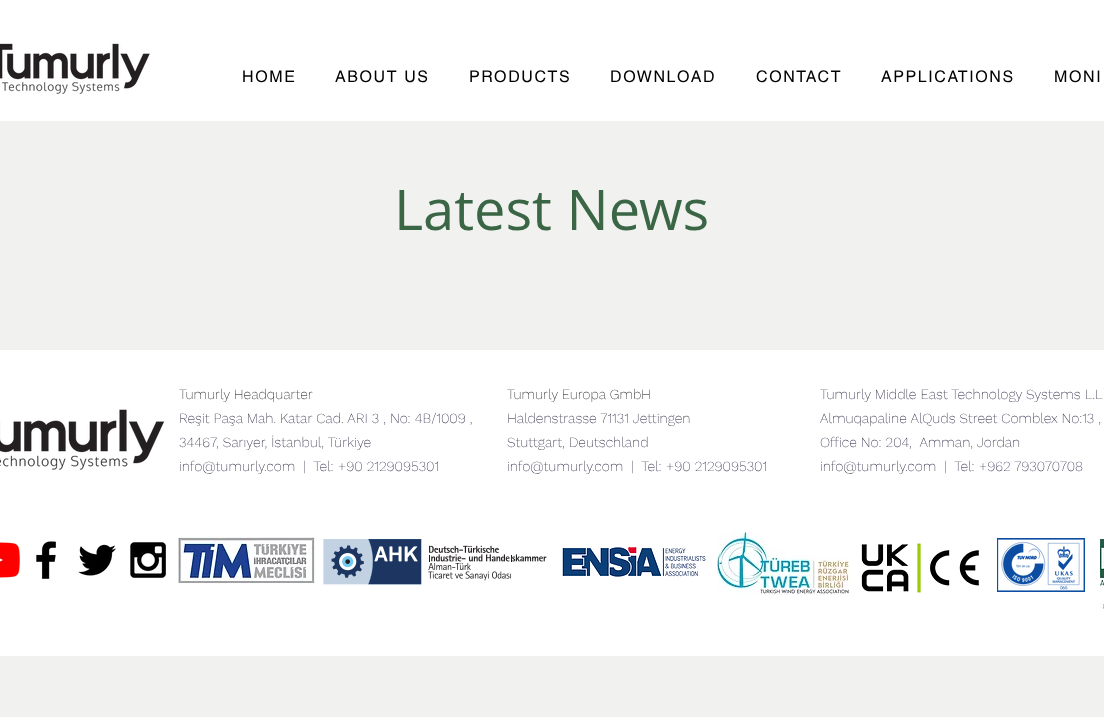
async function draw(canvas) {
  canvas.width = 1104
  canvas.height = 717
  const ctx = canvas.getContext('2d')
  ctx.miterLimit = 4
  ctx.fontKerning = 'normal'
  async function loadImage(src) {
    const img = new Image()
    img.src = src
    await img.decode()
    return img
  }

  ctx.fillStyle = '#f1f1f0'
  ctx.fillRect(0, 0, 1104, 717)
  ctx.fillStyle = '#fff'
  ctx.fillRect(0, 0, 1104, 121)
  ctx.drawImage(await loadImage('image0.png'), 0, 43, 150, 51)
  ctx.letterSpacing = '1.6px'
  ctx.font = '16px helvetica'
  ctx.fillStyle = '#000'
  ctx.fillText('HOME', 242, 82)
  ctx.fillText('ABOUT US', 335, 82)
  ctx.fillText('PRODUCTS', 469, 82)
  ctx.fillText('DOWNLOAD', 610, 82)
  ctx.fillText('CONTACT', 756, 82)
  ctx.fillText('APPLICATIONS', 881, 82)
  ctx.fillText('MONI', 1054, 82)
  ctx.letterSpacing = '0px'
  ctx.font = '56px Open Sans'
  ctx.fillStyle = '#3a6646'
  ctx.fillText('Latest News', 394, 230)
  ctx.fillStyle = '#fff'
  ctx.fillRect(0, 350, 1104, 306)
  ctx.drawImage(await loadImage('image1.png'), 0, 409, 165, 61)
  ctx.font = '200 14px Work Sans'
  ctx.fillStyle = '#000'
  ctx.fillText('Tumurly Headquarter', 179, 399)
  ctx.fillStyle = '#110a2b'
  ctx.fillText('Reşit Paşa Mah. Katar Cad. ARI 3 , No: 4B/1009 ,', 179, 423)
  ctx.fillText('34467, Sarıyer, İstanbul, Türkiye', 179, 447)
  ctx.fillText('info@tumurly.com', 179, 471)
  ctx.fillText('|  Tel: +90 2129095301', 303, 471)
  ctx.fillStyle = '#000'
  ctx.fillText('Tumurly Europa GmbH', 507, 399)
  ctx.fillStyle = '#110a2b'
  ctx.fillText('Haldenstrasse 71131 Jettingen', 507, 423)
  ctx.fillText('Stuttgart, Deutschland', 507, 447)
  ctx.fillText('info@tumurly.com', 507, 471)
  ctx.fillText('|  Tel: +90 2129095301', 631, 471)
  ctx.fillText('Tumurly Middle East Technology Systems L.L', 820, 399)
  ctx.fillText('Almuqapaline AlQuds Street Comblex No:13 ,', 820, 423)
  ctx.fillText('Office No: 204,  Amman, Jordan', 820, 447)
  ctx.fillText('info@tumurly.com', 820, 471)
  ctx.fillText('|  Tel: +962 793070708', 944, 471)
  ctx.drawImage(await loadImage('image2.png'), 0, 542, 20, 36)
  ctx.drawImage(await loadImage('image3.png'), 36, 541, 20, 38)
  ctx.drawImage(await loadImage('image4.png'), 78, 544, 38, 32)
  ctx.drawImage(await loadImage('image5.png'), 130, 542, 36, 36)
  ctx.drawImage(await loadImage('image6.png'), 178, 537, 137, 47)
  ctx.drawImage(await loadImage('image7.png'), 323, 539, 224, 46)
  ctx.drawImage(await loadImage('image8.png'), 562, 547, 144, 30)
  ctx.drawImage(await loadImage('image9.png'), 717, 532, 133, 63)
  ctx.drawImage(await loadImage('image10.png'), 861, 543, 118, 50)
  ctx.drawImage(await loadImage('image11.png'), 997, 538, 88, 54)
  ctx.drawImage(await loadImage('image12.png'), 1100, 539, 4, 70)
}

draw(document.querySelector('canvas'))
